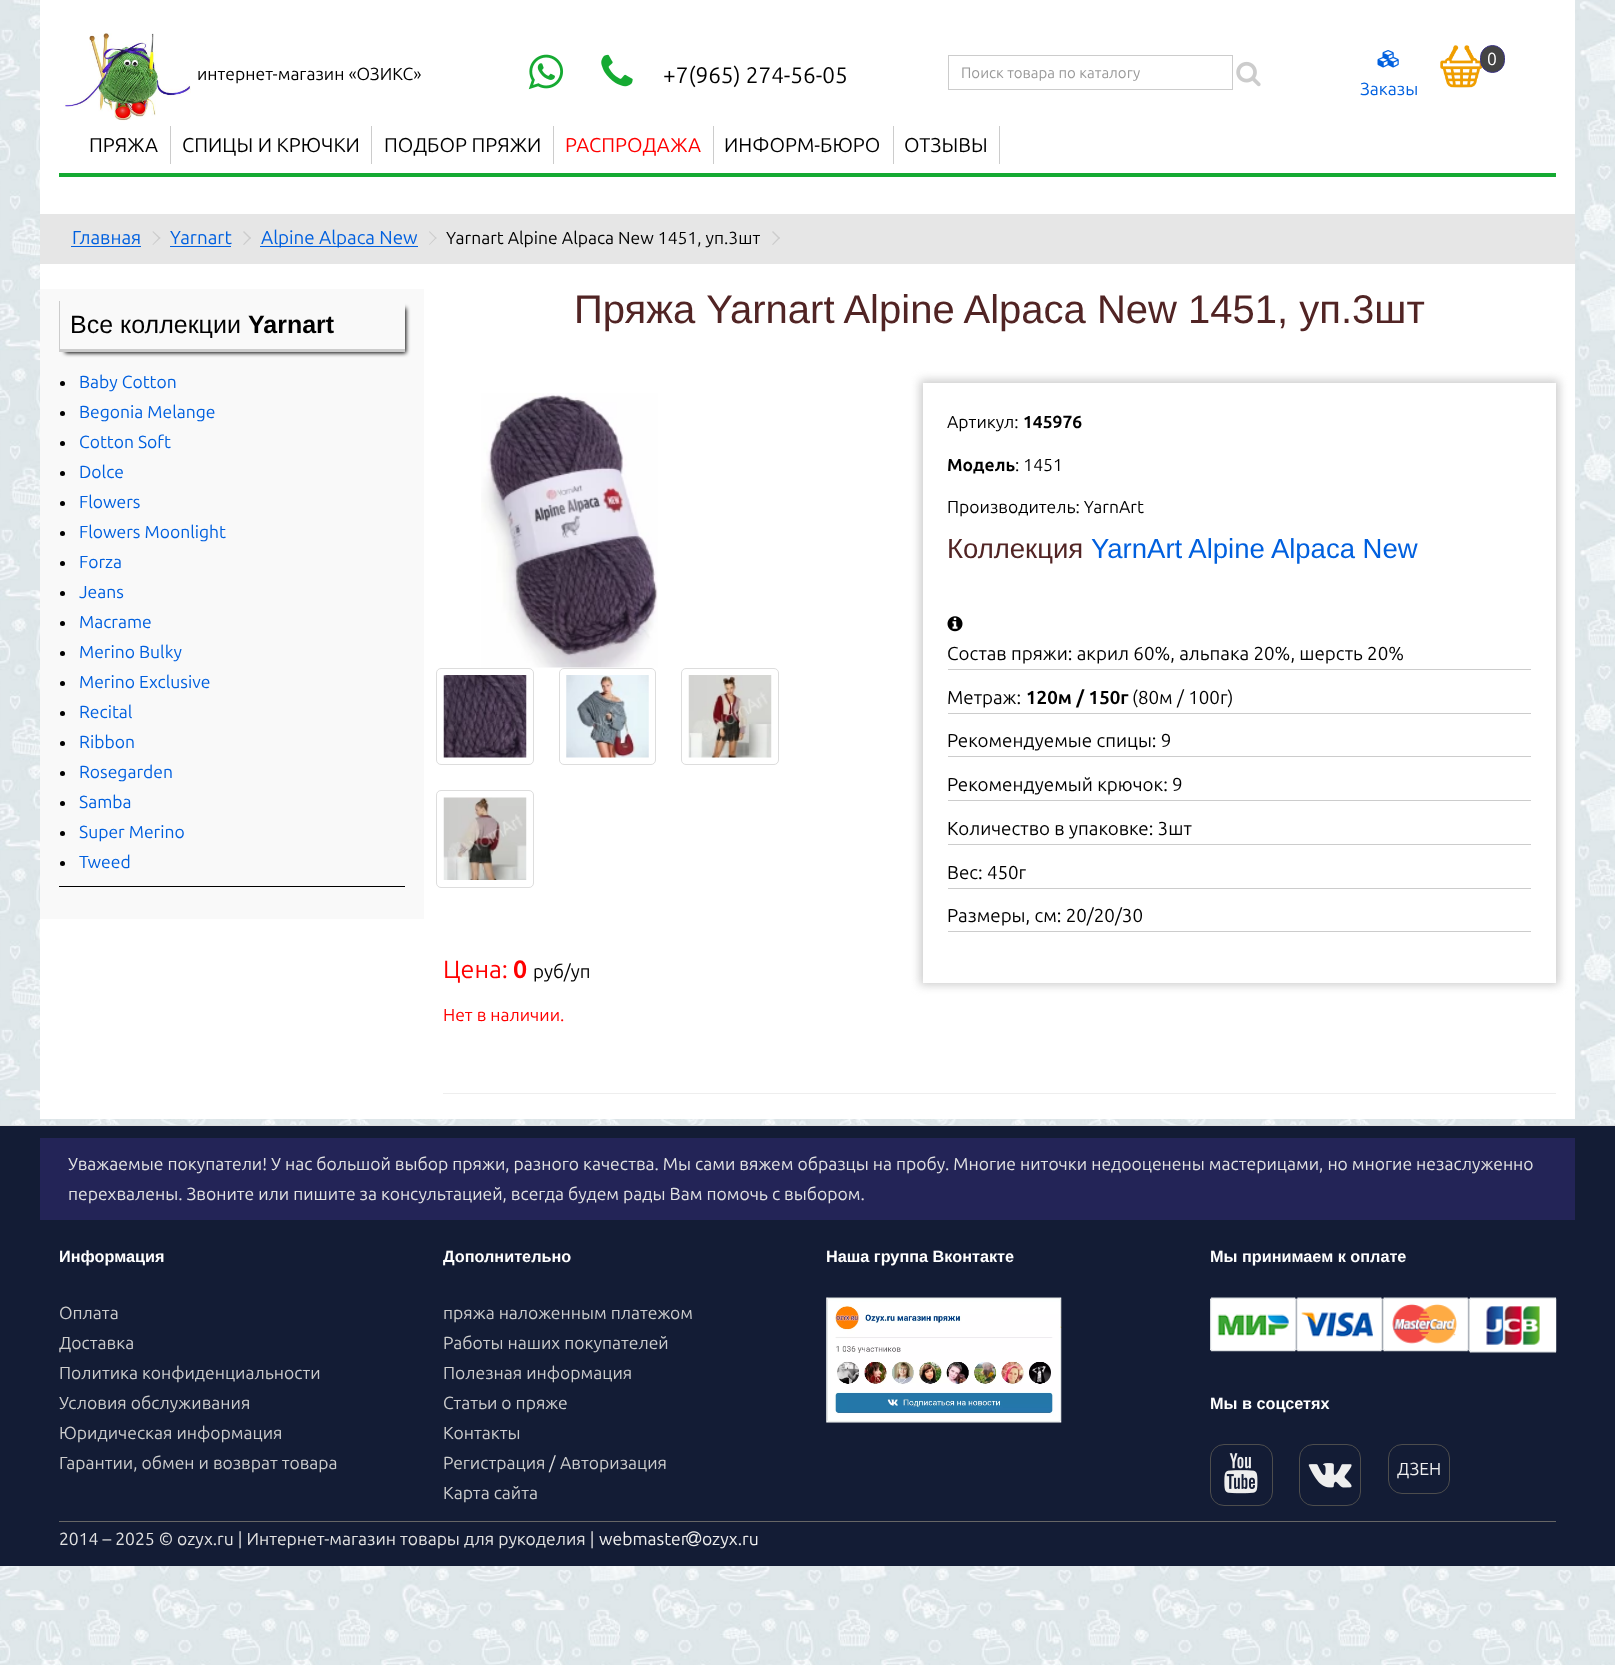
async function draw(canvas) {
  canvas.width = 1615
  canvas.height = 1665
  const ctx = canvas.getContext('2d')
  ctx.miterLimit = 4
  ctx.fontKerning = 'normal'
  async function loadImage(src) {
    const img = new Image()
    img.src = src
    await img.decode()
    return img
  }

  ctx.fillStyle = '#fff'
  ctx.fillRect(0, 0, 1615, 1665)
  ctx.drawImage(await loadImage('image0.png'), 0, 0, 1615, 1665)
  ctx.fillRect(40, 0, 1535, 214)
  ctx.fillStyle = '#15aa32'
  ctx.fillRect(59, 173, 1497, 4)
  ctx.drawImage(await loadImage('image1.png'), 63, 33, 128, 88)
  ctx.font = '17.5px Ubuntu'
  ctx.fillStyle = '#000'
  ctx.fillText('интернет-магазин «ОЗИКС»', 197, 80)
  ctx.drawImage(await loadImage('image2.png'), 528, 54, 36, 36)
  ctx.drawImage(await loadImage('image3.png'), 601, 54, 32, 33)
  ctx.font = '22.5px Ubuntu'
  ctx.fillText('+7(965) 274-56-05', 663, 83)
  ctx.strokeStyle = '#ccc'
  ctx.strokeRect(948.5, 55.5, 284, 34)
  ctx.font = '15px Ubuntu'
  ctx.fillStyle = '#999'
  ctx.fillText('Поиск товара по каталогу', 961, 78)
  ctx.drawImage(await loadImage('image4.png'), 1236, 61, 25, 26)
  ctx.drawImage(await loadImage('image5.png'), 1440, 45, 43, 43)
  ctx.fillStyle = '#444'
  ctx.beginPath()
  ctx.roundRect(1480.5, 45.5, 24, 27, 12)
  ctx.fill()
  ctx.strokeStyle = '#3b3386'
  ctx.stroke()
  ctx.font = '17.5px Ubuntu'
  ctx.fillStyle = '#fff'
  ctx.fillText('0', 1487, 65)
  ctx.drawImage(await loadImage('image6.png'), 1377, 50, 22, 18)
  ctx.fillStyle = '#0060df'
  ctx.fillText('Заказы', 1360, 95)
  ctx.fillStyle = '#ccc'
  ctx.fillRect(170, 126, 1, 38)
  ctx.font = '20px Ubuntu'
  ctx.fillStyle = '#000'
  ctx.fillText('ПРЯЖА', 89, 152)
  ctx.fillStyle = '#ccc'
  ctx.fillRect(371, 126, 1, 38)
  ctx.fillStyle = '#000'
  ctx.fillText('СПИЦЫ И КРЮЧКИ', 182, 152)
  ctx.fillStyle = '#ccc'
  ctx.fillRect(553, 126, 1, 38)
  ctx.fillStyle = '#000'
  ctx.fillText('ПОДБОР ПРЯЖИ', 384, 152)
  ctx.fillStyle = '#ccc'
  ctx.fillRect(713, 126, 1, 38)
  ctx.fillStyle = '#f00'
  ctx.fillText('РАСПРОДАЖА', 565, 152)
  ctx.fillStyle = '#ccc'
  ctx.fillRect(893, 126, 1, 38)
  ctx.fillStyle = '#000'
  ctx.fillText('ИНФОРМ-БЮРО', 724, 152)
  ctx.fillStyle = '#ccc'
  ctx.fillRect(999, 126, 1, 38)
  ctx.fillStyle = '#000'
  ctx.fillText('ОТЗЫВЫ', 904, 152)
  ctx.fillStyle = '#fff'
  ctx.fillRect(40, 264, 1535, 855)
  ctx.fillStyle = '#e6e6e6'
  ctx.fillRect(40, 214, 1535, 50)
  ctx.font = '18.75px Ubuntu'
  ctx.fillStyle = '#0060df'
  ctx.fillText('Главная', 72, 244)
  ctx.fillRect(71, 246, 70, 1)
  ctx.fillStyle = '#ccc'
  ctx.beginPath()
  ctx.moveTo(152.5, 232)
  ctx.lineTo(153, 231)
  ctx.lineTo(160.5, 238)
  ctx.lineTo(159.5, 239)
  ctx.closePath()
  ctx.fill()
  ctx.beginPath()
  ctx.moveTo(152.5, 244.5)
  ctx.lineTo(159.5, 237)
  ctx.lineTo(160.5, 238)
  ctx.lineTo(153, 245)
  ctx.closePath()
  ctx.fill()
  ctx.fillStyle = '#0060df'
  ctx.fillText('Yarnart', 170, 244)
  ctx.fillRect(170, 246, 61, 1)
  ctx.fillStyle = '#ccc'
  ctx.beginPath()
  ctx.moveTo(243, 232)
  ctx.lineTo(244, 231)
  ctx.lineTo(251, 238)
  ctx.lineTo(250, 239)
  ctx.closePath()
  ctx.fill()
  ctx.beginPath()
  ctx.moveTo(243, 244.5)
  ctx.lineTo(250, 237)
  ctx.lineTo(251, 238)
  ctx.lineTo(244, 245)
  ctx.closePath()
  ctx.fill()
  ctx.fillStyle = '#0060df'
  ctx.fillRect(260, 246, 158, 1)
  ctx.fillText('Alpine Alpaca New', 261, 244)
  ctx.fillStyle = '#ccc'
  ctx.beginPath()
  ctx.moveTo(429, 232)
  ctx.lineTo(429.5, 231)
  ctx.lineTo(436.5, 238)
  ctx.lineTo(436, 239)
  ctx.closePath()
  ctx.fill()
  ctx.beginPath()
  ctx.moveTo(429, 244.5)
  ctx.lineTo(436, 237)
  ctx.lineTo(436.5, 238)
  ctx.lineTo(429.5, 245)
  ctx.closePath()
  ctx.fill()
  ctx.font = '17.5px Ubuntu'
  ctx.fillStyle = '#000'
  ctx.fillText('Yarnart Alpine Alpaca New 1451, уп.3шт', 446, 244)
  ctx.fillStyle = '#ccc'
  ctx.beginPath()
  ctx.moveTo(772, 232)
  ctx.lineTo(773, 231)
  ctx.lineTo(780, 238)
  ctx.lineTo(779, 239)
  ctx.closePath()
  ctx.fill()
  ctx.beginPath()
  ctx.moveTo(772, 244.5)
  ctx.lineTo(779, 237)
  ctx.lineTo(780, 238)
  ctx.lineTo(773, 245)
  ctx.closePath()
  ctx.fill()
  ctx.fillStyle = '#f9f9f9'
  ctx.fillRect(40, 289, 384, 630)
  ctx.save()
  ctx.beginPath()
  ctx.moveTo(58, 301)
  ctx.lineTo(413, 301)
  ctx.lineTo(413, 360)
  ctx.lineTo(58, 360)
  ctx.closePath()
  ctx.moveTo(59, 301)
  ctx.lineTo(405, 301)
  ctx.lineTo(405, 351)
  ctx.lineTo(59, 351)
  ctx.closePath()
  ctx.clip('evenodd')
  ctx.fillStyle = '#000'
  ctx.filter = 'blur(2px)'
  ctx.beginPath()
  ctx.rect(65, 308, 341, 45)
  ctx.fill()
  ctx.filter = 'none'
  ctx.restore()
  ctx.fillStyle = '#ccc'
  ctx.fillRect(59, 349, 346, 3)
  ctx.fillRect(59, 301, 1, 50)
  ctx.font = '25px Liberation Sans'
  ctx.fillStyle = '#000'
  ctx.fillText('Все коллекции', 70, 333)
  ctx.font = 'bold 25px Liberation Sans'
  ctx.fillText('Yarnart', 248, 333)
  ctx.fillRect(59, 886, 346, 1)
  ctx.beginPath()
  ctx.arc(62.5, 383.5, 2.5, 0, 2 * Math.PI)
  ctx.fill()
  ctx.font = '17.5px Ubuntu'
  ctx.fillStyle = '#0060df'
  ctx.fillText('Baby Cotton', 79, 388)
  ctx.fillStyle = '#000'
  ctx.beginPath()
  ctx.arc(62.5, 413.5, 2.5, 0, 2 * Math.PI)
  ctx.fill()
  ctx.fillStyle = '#0060df'
  ctx.fillText('Begonia Melange', 79, 418)
  ctx.fillStyle = '#000'
  ctx.beginPath()
  ctx.arc(62.5, 443.5, 2.5, 0, 2 * Math.PI)
  ctx.fill()
  ctx.fillStyle = '#0060df'
  ctx.fillText('Cotton Soft', 79, 448)
  ctx.fillStyle = '#000'
  ctx.beginPath()
  ctx.arc(62.5, 473.5, 2.5, 0, 2 * Math.PI)
  ctx.fill()
  ctx.fillStyle = '#0060df'
  ctx.fillText('Dolce', 79, 478)
  ctx.fillStyle = '#000'
  ctx.beginPath()
  ctx.arc(62.5, 503.5, 2.5, 0, 2 * Math.PI)
  ctx.fill()
  ctx.fillStyle = '#0060df'
  ctx.fillText('Flowers', 79, 508)
  ctx.fillStyle = '#000'
  ctx.beginPath()
  ctx.arc(62.5, 533.5, 2.5, 0, 2 * Math.PI)
  ctx.fill()
  ctx.fillStyle = '#0060df'
  ctx.fillText('Flowers Moonlight', 79, 538)
  ctx.fillStyle = '#000'
  ctx.beginPath()
  ctx.arc(62.5, 563.5, 2.5, 0, 2 * Math.PI)
  ctx.fill()
  ctx.fillStyle = '#0060df'
  ctx.fillText('Forza', 79, 568)
  ctx.fillStyle = '#000'
  ctx.beginPath()
  ctx.arc(62.5, 593.5, 2.5, 0, 2 * Math.PI)
  ctx.fill()
  ctx.fillStyle = '#0060df'
  ctx.fillText('Jeans', 79, 598)
  ctx.fillStyle = '#000'
  ctx.beginPath()
  ctx.arc(62.5, 623.5, 2.5, 0, 2 * Math.PI)
  ctx.fill()
  ctx.fillStyle = '#0060df'
  ctx.fillText('Macrame', 79, 628)
  ctx.fillStyle = '#000'
  ctx.beginPath()
  ctx.arc(62.5, 653.5, 2.5, 0, 2 * Math.PI)
  ctx.fill()
  ctx.fillStyle = '#0060df'
  ctx.fillText('Merino Bulky', 79, 658)
  ctx.fillStyle = '#000'
  ctx.beginPath()
  ctx.arc(62.5, 683.5, 2.5, 0, 2 * Math.PI)
  ctx.fill()
  ctx.fillStyle = '#0060df'
  ctx.fillText('Merino Exclusive', 79, 688)
  ctx.fillStyle = '#000'
  ctx.beginPath()
  ctx.arc(62.5, 713.5, 2.5, 0, 2 * Math.PI)
  ctx.fill()
  ctx.fillStyle = '#0060df'
  ctx.fillText('Recital', 79, 718)
  ctx.fillStyle = '#000'
  ctx.beginPath()
  ctx.arc(62.5, 743.5, 2.5, 0, 2 * Math.PI)
  ctx.fill()
  ctx.fillStyle = '#0060df'
  ctx.fillText('Ribbon', 79, 748)
  ctx.fillStyle = '#000'
  ctx.beginPath()
  ctx.arc(62.5, 773.5, 2.5, 0, 2 * Math.PI)
  ctx.fill()
  ctx.fillStyle = '#0060df'
  ctx.fillText('Rosegarden', 79, 778)
  ctx.fillStyle = '#000'
  ctx.beginPath()
  ctx.arc(62.5, 803.5, 2.5, 0, 2 * Math.PI)
  ctx.fill()
  ctx.fillStyle = '#0060df'
  ctx.fillText('Samba', 79, 808)
  ctx.fillStyle = '#000'
  ctx.beginPath()
  ctx.arc(62.5, 833.5, 2.5, 0, 2 * Math.PI)
  ctx.fill()
  ctx.fillStyle = '#0060df'
  ctx.fillText('Super Merino', 79, 838)
  ctx.fillStyle = '#000'
  ctx.beginPath()
  ctx.arc(62.5, 863.5, 2.5, 0, 2 * Math.PI)
  ctx.fill()
  ctx.fillStyle = '#0060df'
  ctx.fillText('Tweed', 79, 868)
  ctx.font = '40px Liberation Sans'
  ctx.fillStyle = '#512424'
  ctx.fillText('Пряжа Yarnart Alpine Alpaca New 1451, уп.3шт', 574, 323)
  ctx.save()
  ctx.beginPath()
  ctx.moveTo(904, 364)
  ctx.lineTo(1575, 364)
  ctx.lineTo(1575, 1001)
  ctx.lineTo(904, 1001)
  ctx.closePath()
  ctx.moveTo(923, 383)
  ctx.lineTo(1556, 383)
  ctx.lineTo(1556, 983)
  ctx.lineTo(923, 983)
  ctx.closePath()
  ctx.clip('evenodd')
  ctx.fillStyle = '#ccc'
  ctx.filter = 'blur(5px)'
  ctx.beginPath()
  ctx.rect(920, 380, 639, 605)
  ctx.fill()
  ctx.filter = 'none'
  ctx.restore()
  ctx.font = '17.5px Ubuntu'
  ctx.fillStyle = '#000'
  ctx.fillText('Артикул:', 947, 428)
  ctx.font = 'bold 17.5px Ubuntu'
  ctx.fillText('145976', 1023, 428)
  ctx.fillText('Модель', 947, 471)
  ctx.font = '17.5px Ubuntu'
  ctx.fillText(': 1451', 1015, 471)
  ctx.fillText('Производитель: YarnArt', 947, 513)
  ctx.font = '27.5px Liberation Sans'
  ctx.fillStyle = '#512424'
  ctx.fillText('Коллекция', 947, 558)
  ctx.fillStyle = '#0060df'
  ctx.fillText('YarnArt Alpine Alpaca New', 1091, 558)
  ctx.drawImage(await loadImage('image7.png'), 947, 616, 16, 16)
  ctx.fillStyle = '#ccc'
  ctx.fillRect(948, 669, 583, 1)
  ctx.font = '18.75px Ubuntu'
  ctx.fillStyle = '#000'
  ctx.fillText('Состав пряжи: акрил 60%, альпака 20%, шерсть 20%', 947, 660)
  ctx.fillStyle = '#ccc'
  ctx.fillRect(948, 713, 583, 1)
  ctx.fillStyle = '#000'
  ctx.fillText('Метраж:', 947, 704)
  ctx.font = 'bold 18.75px Ubuntu'
  ctx.fillText('120м / 150г', 1026, 704)
  ctx.font = '18.75px Ubuntu'
  ctx.fillText('(80м / 100г)', 1132, 704)
  ctx.fillStyle = '#ccc'
  ctx.fillRect(948, 756, 583, 1)
  ctx.fillStyle = '#000'
  ctx.fillText('Рекомендуемые спицы: 9', 947, 747)
  ctx.fillStyle = '#ccc'
  ctx.fillRect(948, 800, 583, 1)
  ctx.fillStyle = '#000'
  ctx.fillText('Рекомендуемый крючок: 9', 947, 791)
  ctx.fillStyle = '#ccc'
  ctx.fillRect(948, 844, 583, 1)
  ctx.fillStyle = '#000'
  ctx.fillText('Количество в упаковке: 3шт', 947, 835)
  ctx.fillStyle = '#ccc'
  ctx.fillRect(948, 888, 583, 1)
  ctx.fillStyle = '#000'
  ctx.fillText('Вес: 450г', 947, 879)
  ctx.fillStyle = '#ccc'
  ctx.fillRect(948, 931, 583, 1)
  ctx.fillStyle = '#000'
  ctx.fillText('Размеры, см: 20/20/30', 947, 922)
  ctx.drawImage(await loadImage('image8.png'), 481, 393, 177, 275)
  ctx.beginPath()
  ctx.roundRect(436.5, 668.5, 97, 96, 4.5)
  ctx.strokeStyle = '#ddd'
  ctx.stroke()
  ctx.drawImage(await loadImage('image9.png'), 443, 675, 84, 83)
  ctx.beginPath()
  ctx.roundRect(559.5, 668.5, 96, 96, 4.5)
  ctx.stroke()
  ctx.drawImage(await loadImage('image10.png'), 566, 675, 83, 83)
  ctx.beginPath()
  ctx.roundRect(681.5, 668.5, 97, 96, 4.5)
  ctx.stroke()
  ctx.drawImage(await loadImage('image11.png'), 688, 675, 84, 83)
  ctx.beginPath()
  ctx.roundRect(436.5, 790.5, 97, 97, 4.5)
  ctx.stroke()
  ctx.drawImage(await loadImage('image12.png'), 443, 797, 84, 83)
  ctx.font = '25px Ubuntu'
  ctx.fillStyle = '#f00'
  ctx.fillText('Цена:', 443, 978)
  ctx.font = 'bold 25px Ubuntu'
  ctx.fillText('0', 513, 978)
  ctx.font = '18.75px Ubuntu'
  ctx.fillStyle = '#000'
  ctx.fillText('руб/уп', 533, 978)
  ctx.font = '17.5px Ubuntu'
  ctx.fillStyle = '#f00'
  ctx.fillText('Нет в наличии.', 443, 1021)
  ctx.fillStyle = '#eee'
  ctx.fillRect(443, 1093, 1113, 1)
  ctx.fillStyle = '#131c35'
  ctx.fillRect(0, 1126, 1615, 440)
  ctx.fillStyle = '#ddd'
  ctx.fillRect(0, 1125, 1615, 1)
  ctx.fillStyle = '#232457'
  ctx.fillRect(40, 1138, 1535, 82)
  ctx.fillStyle = '#e2e2e2'
  ctx.fillText('Уважаемые покупатели! У нас большой выбор пряжи, разного качества. Мы сами вяжем образцы на пробу. Многие ниточки недооценены мастерицами, но многие незаслуженно', 68, 1170)
  ctx.fillText('перехвалены. Звоните или пишите за консультацией, всегда будем рады Вам помочь с выбором.', 68, 1200)
  ctx.font = 'bold 16.25px Liberation Sans'
  ctx.fillStyle = '#fff'
  ctx.fillText('Информация', 59, 1262)
  ctx.font = '17.5px Ubuntu'
  ctx.fillStyle = '#ccc'
  ctx.fillText('Оплата', 59, 1319)
  ctx.fillText('Доставка', 59, 1349)
  ctx.fillText('Политика конфиденциальности', 59, 1379)
  ctx.fillText('Условия обслуживания', 59, 1409)
  ctx.fillText('Юридическая информация', 59, 1439)
  ctx.fillText('Гарантии, обмен и возврат товара', 59, 1469)
  ctx.font = 'bold 16.25px Liberation Sans'
  ctx.fillStyle = '#fff'
  ctx.fillText('Дополнительно', 443, 1262)
  ctx.font = '17.5px Ubuntu'
  ctx.fillStyle = '#ccc'
  ctx.fillText('пряжа наложенным платежом', 443, 1319)
  ctx.fillText('Работы наших покупателей', 443, 1349)
  ctx.fillText('Полезная информация', 443, 1379)
  ctx.fillText('Статьи о пряже', 443, 1409)
  ctx.fillText('Контакты', 443, 1439)
  ctx.fillText('Регистрация', 443, 1469)
  ctx.fillStyle = '#e2e2e2'
  ctx.fillText('/', 549, 1469)
  ctx.fillStyle = '#ccc'
  ctx.fillText('Авторизация', 560, 1469)
  ctx.fillText('Карта сайта', 443, 1499)
  ctx.font = 'bold 16.25px Liberation Sans'
  ctx.fillStyle = '#fff'
  ctx.fillText('Наша группа Вконтакте', 826, 1262)
  ctx.drawImage(await loadImage('image13.png'), 826, 1297, 236, 126)
  ctx.fillText('Мы принимаем к оплате', 1210, 1262)
  ctx.drawImage(await loadImage('image14.png'), 1210, 1297, 87, 55)
  ctx.drawImage(await loadImage('image15.png'), 1296, 1297, 87, 55)
  ctx.drawImage(await loadImage('image16.png'), 1382, 1297, 87, 55)
  ctx.drawImage(await loadImage('image17.png'), 1468, 1297, 89, 56)
  ctx.fillText('Мы в соцсетях', 1210, 1409)
  ctx.beginPath()
  ctx.roundRect(1210.5, 1444.5, 62, 61, 13.5)
  ctx.strokeStyle = '#4d4d4d'
  ctx.stroke()
  ctx.drawImage(await loadImage('image18.png'), 1224, 1453, 34, 41)
  ctx.beginPath()
  ctx.roundRect(1299.5, 1444.5, 61, 61, 13.5)
  ctx.stroke()
  ctx.drawImage(await loadImage('image19.png'), 1308, 1463, 44, 25)
  ctx.beginPath()
  ctx.roundRect(1388.5, 1444.5, 61, 49, 13.5)
  ctx.stroke()
  ctx.font = '17.5px Ubuntu'
  ctx.fillStyle = '#eee'
  ctx.fillText('ДЗЕН', 1397, 1475)
  ctx.fillStyle = '#666'
  ctx.fillRect(59, 1521, 1497, 1)
  ctx.fillStyle = '#e2e2e2'
  ctx.fillText('2014 – 2025 © ozyx.ru | Интернет-магазин товары для рукоделия |', 59, 1545)
  ctx.fillStyle = '#eee'
  ctx.fillText('webmaster', 599, 1545)
  ctx.drawImage(await loadImage('image20.png'), 686, 1531, 16, 16)
  ctx.fillText('ozyx.ru', 702, 1545)
}

draw(document.querySelector('canvas'))
